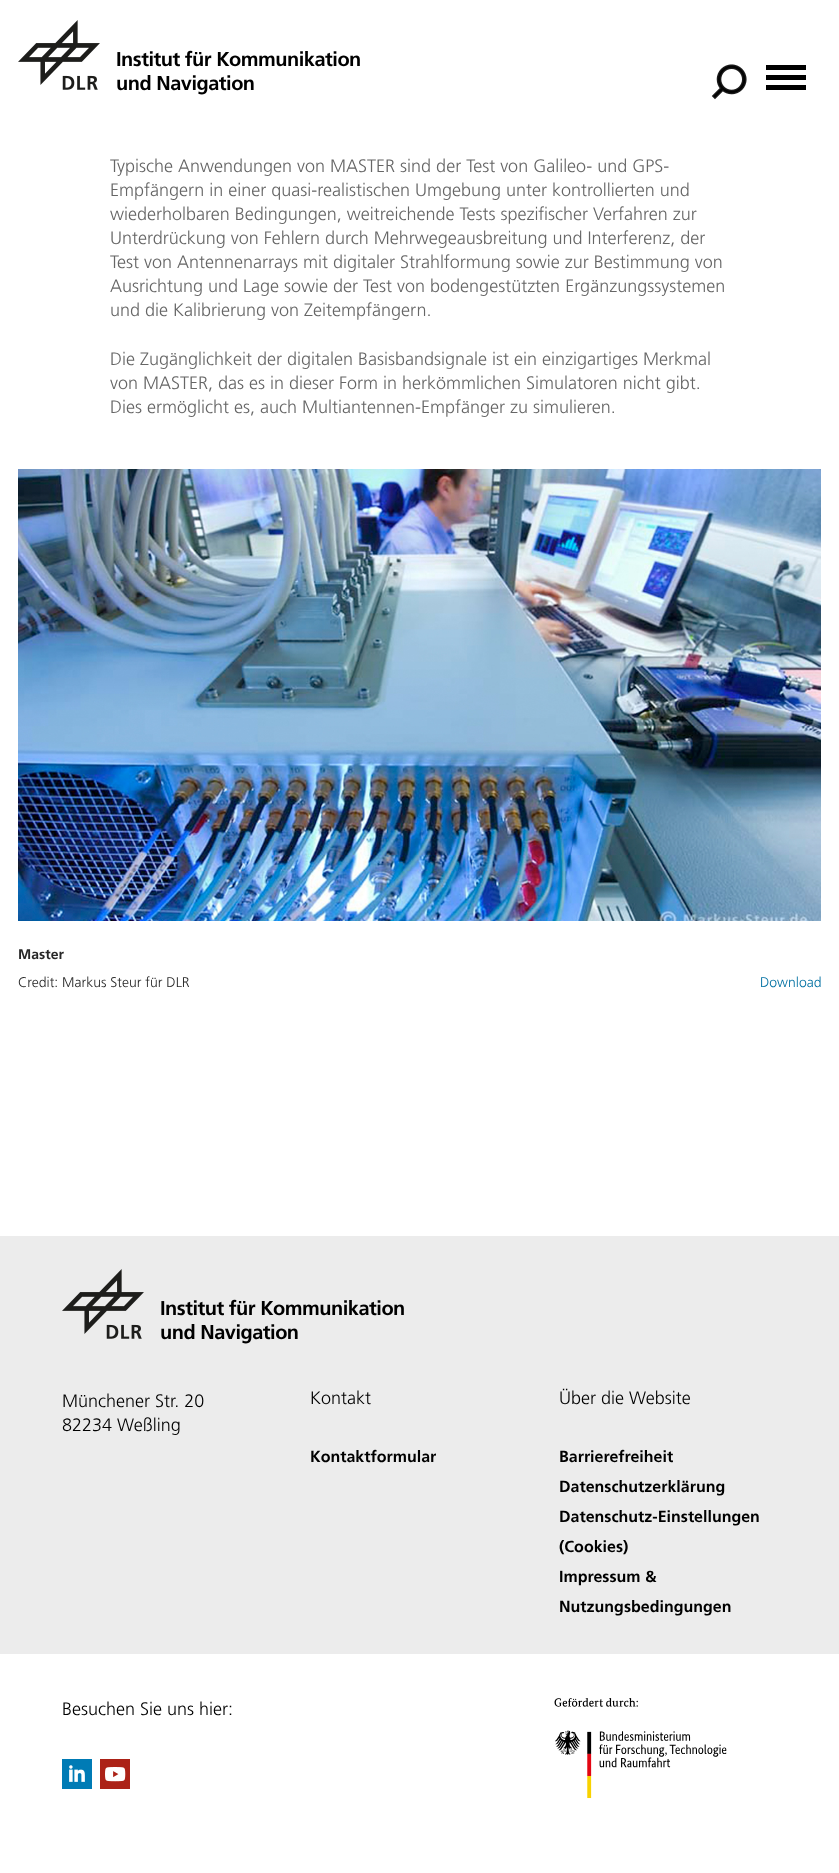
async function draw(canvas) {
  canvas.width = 839
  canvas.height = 1873
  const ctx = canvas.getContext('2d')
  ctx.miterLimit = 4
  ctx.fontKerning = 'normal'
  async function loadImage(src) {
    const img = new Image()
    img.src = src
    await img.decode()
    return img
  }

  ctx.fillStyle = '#fff'
  ctx.fillRect(0, 0, 839, 1873)
  ctx.drawImage(await loadImage('image0.png'), 18, 20, 82, 70)
  ctx.letterSpacing = '-0.5px'
  ctx.font = 'bold 20px Frutiger'
  ctx.fillStyle = '#000'
  ctx.fillText('Institut für Kommunikation', 116, 66)
  ctx.fillText('und Navigation', 116, 90)
  ctx.drawImage(await loadImage('image1.png'), 711, 64, 36, 36)
  ctx.fillRect(766, 85, 40, 5)
  ctx.fillRect(766, 65, 40, 5)
  ctx.fillRect(766, 75, 40, 5)
  ctx.letterSpacing = '0px'
  ctx.font = '300 18px Frutiger'
  ctx.fillStyle = '#666'
  ctx.fillText('Typische Anwendungen von MASTER sind der Test von Galileo- und GPS-', 110, 172)
  ctx.fillText('Empfängern in einer quasi-realistischen Umgebung unter kontrollierten und', 110, 196)
  ctx.fillText('wiederholbaren Bedingungen, weitreichende Tests spezifischer Verfahren zur', 110, 220)
  ctx.fillText('Unterdrückung von Fehlern durch Mehrwegeausbreitung und Interferenz, der', 110, 244)
  ctx.fillText('Test von Antennenarrays mit digitaler Strahlformung sowie zur Bestimmung von', 110, 268)
  ctx.fillText('Ausrichtung und Lage sowie der Test von bodengestützten Ergänzungssystemen', 110, 292)
  ctx.fillText('und die Kalibrierung von Zeitempfängern.', 110, 316)
  ctx.fillText('Die Zugänglichkeit der digitalen Basisbandsignale ist ein einzigartiges Merkmal', 110, 365)
  ctx.fillText('von MASTER, das es in dieser Form in herkömmlichen Simulatoren nicht gibt.', 110, 389)
  ctx.fillText('Dies ermöglicht es, auch Multiantennen-Empfänger zu simulieren.', 110, 413)
  ctx.drawImage(await loadImage('image2.png'), 18, 469, 803, 452)
  ctx.font = 'bold 14px Frutiger'
  ctx.fillStyle = '#272727'
  ctx.fillText('Master', 18, 959)
  ctx.font = '300 14px Frutiger'
  ctx.fillText('Credit: Markus Steur für DLR', 18, 987)
  ctx.fillStyle = '#0070a2'
  ctx.fillText('Download', 760, 987)
  ctx.fillStyle = '#ececec'
  ctx.fillRect(0, 1236, 839, 418)
  ctx.drawImage(await loadImage('image3.png'), 62, 1269, 82, 70)
  ctx.letterSpacing = '-0.5px'
  ctx.font = 'bold 20px Frutiger'
  ctx.fillStyle = '#000'
  ctx.fillText('Institut für Kommunikation', 160, 1315)
  ctx.fillText('und Navigation', 160, 1339)
  ctx.letterSpacing = '0px'
  ctx.font = '300 18px Frutiger'
  ctx.fillText('Münchener Str. 20', 62, 1407)
  ctx.fillText('82234 Weßling', 62, 1431)
  ctx.fillText('Kontakt', 310, 1404)
  ctx.font = 'bold 16px Frutiger'
  ctx.fillText('Kontaktformular', 310, 1462)
  ctx.font = '300 18px Frutiger'
  ctx.fillText('Über die Website', 559, 1404)
  ctx.font = 'bold 16px Frutiger'
  ctx.fillText('Barrierefreiheit', 559, 1462)
  ctx.fillText('Datenschutzerklärung', 559, 1492)
  ctx.fillText('Datenschutz-Einstellungen', 559, 1522)
  ctx.fillText('(Cookies)', 559, 1552)
  ctx.fillText('Impressum &', 559, 1582)
  ctx.fillText('Nutzungsbedingungen', 559, 1612)
  ctx.font = '300 18px Frutiger'
  ctx.fillText('Besuchen Sie uns hier:', 62, 1715)
  ctx.drawImage(await loadImage('image4.png'), 62, 1759, 30, 30)
  ctx.drawImage(await loadImage('image5.png'), 100, 1759, 30, 30)
  ctx.drawImage(await loadImage('image6.png'), 554, 1698, 173, 101)
}

draw(document.querySelector('canvas'))
